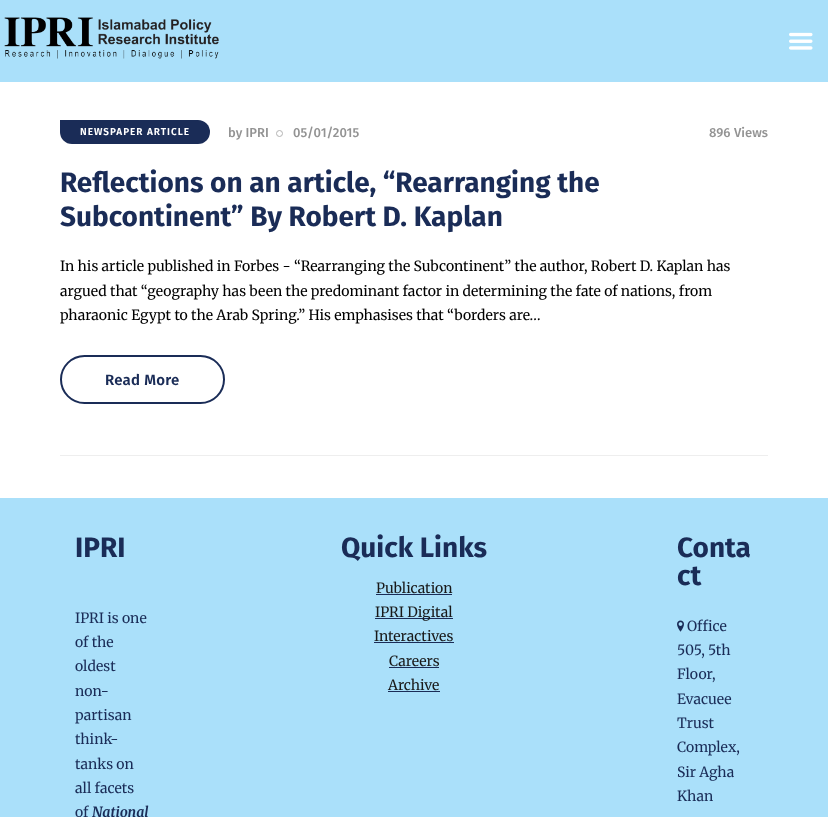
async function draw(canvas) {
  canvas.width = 828
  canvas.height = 817
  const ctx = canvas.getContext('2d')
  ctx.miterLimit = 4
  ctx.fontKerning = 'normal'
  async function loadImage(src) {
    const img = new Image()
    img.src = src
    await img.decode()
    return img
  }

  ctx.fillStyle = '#fff'
  ctx.fillRect(0, 0, 828, 817)
  ctx.fillStyle = '#aae0fa'
  ctx.fillRect(0, 0, 828, 82)
  ctx.drawImage(await loadImage('image0.png'), 4, 17, 215, 42)
  ctx.drawImage(await loadImage('image1.png'), 789, 32, 24, 18)
  ctx.fillStyle = '#eee'
  ctx.fillRect(60, 455, 708, 1)
  ctx.fillStyle = '#1a2c57'
  ctx.beginPath()
  ctx.roundRect(60, 120, 150, 24, [0, 12, 12, 12])
  ctx.fill()
  ctx.letterSpacing = '1px'
  ctx.font = '600 10px Fira Sans'
  ctx.fillStyle = '#fff'
  ctx.fillText('NEWSPAPER ARTICLE', 80, 135)
  ctx.letterSpacing = '0px'
  ctx.font = '500 13px Fira Sans'
  ctx.fillStyle = '#939393'
  ctx.fillText('by IPRI', 228, 137)
  ctx.beginPath()
  ctx.arc(279.5, 133.5, 3, 0, 2 * Math.PI)
  ctx.strokeStyle = '#b3b3b3'
  ctx.stroke()
  ctx.fillText('05/01/2015', 293, 137)
  ctx.fillText('896', 709, 137)
  ctx.fillText('Views', 734, 137)
  ctx.font = 'bold 28px Fira Sans'
  ctx.fillStyle = '#1a2c57'
  ctx.fillText('Reflections on an article, “Rearranging the', 60, 192)
  ctx.fillText('Subcontinent” By Robert D. Kaplan', 60, 226)
  ctx.font = '14px Merriweather'
  ctx.fillStyle = '#000'
  ctx.fillText('In his article published in Forbes - “Rearranging the Subcontinent” the author, Robert D. Kaplan has', 60, 271)
  ctx.fillText('argued that “geography has been the predominant factor in determining the fate of nations, from', 60, 296)
  ctx.fillText('pharaonic Egypt to the Arab Spring.” His emphasises that “borders are…', 60, 320)
  ctx.beginPath()
  ctx.roundRect(61, 356, 163, 47, 23.5)
  ctx.strokeStyle = '#1a2c57'
  ctx.lineWidth = 2
  ctx.stroke()
  ctx.letterSpacing = '0.25px'
  ctx.font = '600 15px Fira Sans'
  ctx.fillStyle = '#1a2c57'
  ctx.fillText('Read More', 105, 385)
  ctx.fillStyle = '#aae0fa'
  ctx.fillRect(0, 498, 828, 319)
  ctx.letterSpacing = '0px'
  ctx.font = 'bold 28px Fira Sans'
  ctx.fillStyle = '#1a2c57'
  ctx.fillText('IPRI', 75, 557)
  ctx.font = '14px Merriweather'
  ctx.fillText('IPRI is one', 75, 623)
  ctx.fillText('of the', 75, 647)
  ctx.fillText('oldest', 75, 671)
  ctx.fillText('non-', 75, 696)
  ctx.fillText('partisan', 75, 720)
  ctx.fillText('think-', 75, 744)
  ctx.fillText('tanks on', 75, 769)
  ctx.fillText('all facets', 75, 793)
  ctx.fillText('of', 75, 817)
  ctx.font = 'italic bold 14px Merriweather'
  ctx.fillText('National', 92, 817)
  ctx.font = 'bold 28px Fira Sans'
  ctx.fillText('Quick Links', 341, 557)
  ctx.font = '14px Merriweather'
  ctx.fillStyle = '#191919'
  ctx.fillText('Publication', 376, 593)
  ctx.fillStyle = '#1a2c57'
  ctx.fillRect(376, 594, 76, 1)
  ctx.fillRect(375, 618, 78, 1)
  ctx.fillStyle = '#191919'
  ctx.fillText('IPRI Digital', 375, 617)
  ctx.fillText('Interactives', 374, 641)
  ctx.fillStyle = '#1a2c57'
  ctx.fillRect(374, 642, 80, 1)
  ctx.fillStyle = '#191919'
  ctx.fillText('Careers', 389, 666)
  ctx.fillStyle = '#1a2c57'
  ctx.fillRect(389, 667, 50, 1)
  ctx.fillStyle = '#191919'
  ctx.fillText('Archive', 388, 690)
  ctx.fillStyle = '#1a2c57'
  ctx.fillRect(388, 691, 52, 1)
  ctx.font = 'bold 28px Fira Sans'
  ctx.fillText('Conta', 677, 557)
  ctx.fillText('ct', 677, 585)
  ctx.drawImage(await loadImage('image2.png'), 677, 620, 7, 12)
  ctx.font = '14px Merriweather'
  ctx.fillText('Office', 687, 631)
  ctx.fillText('505, 5th', 677, 655)
  ctx.fillText('Floor,', 677, 679)
  ctx.fillText('Evacuee', 677, 704)
  ctx.fillText('Trust', 677, 728)
  ctx.fillText('Complex,', 677, 752)
  ctx.fillText('Sir Agha', 677, 777)
  ctx.fillText('Khan', 677, 801)
}

draw(document.querySelector('canvas'))
